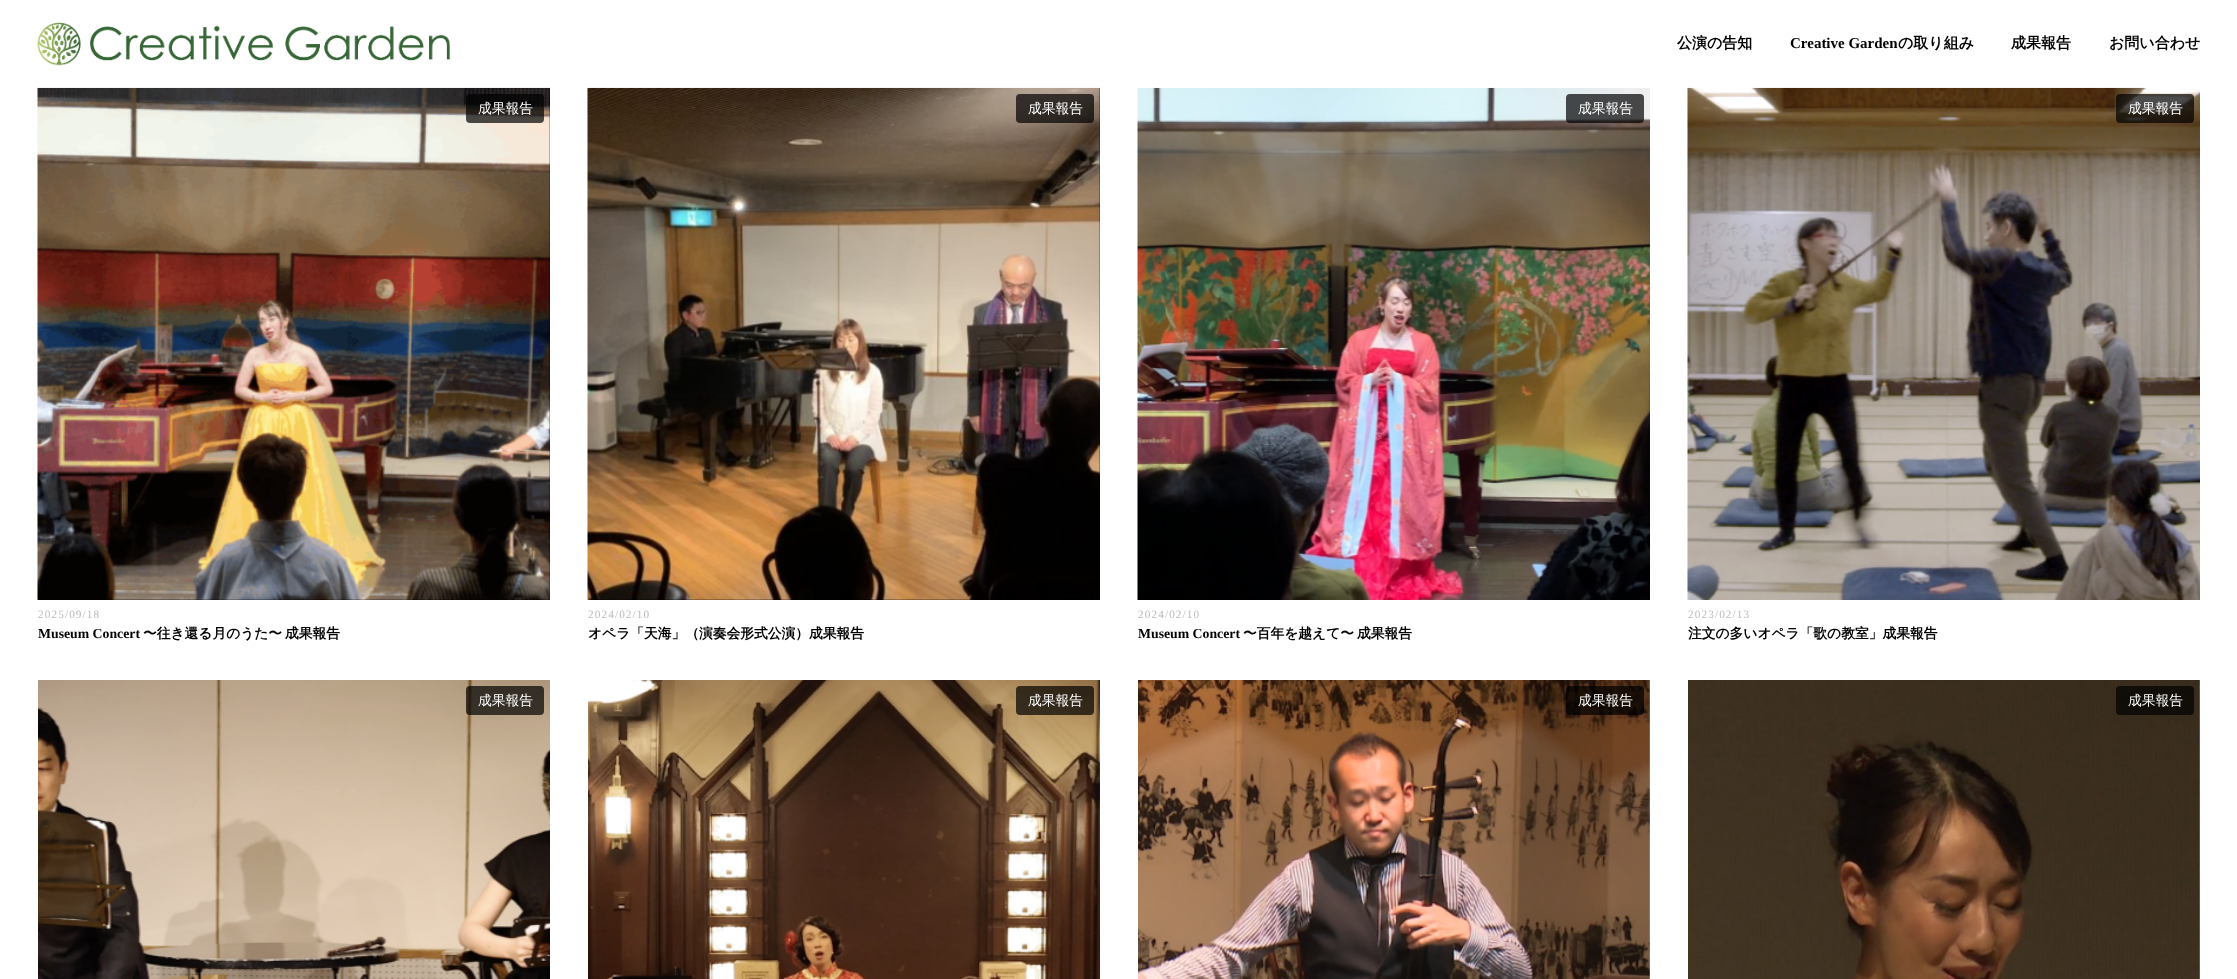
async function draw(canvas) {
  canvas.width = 2237
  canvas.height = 979
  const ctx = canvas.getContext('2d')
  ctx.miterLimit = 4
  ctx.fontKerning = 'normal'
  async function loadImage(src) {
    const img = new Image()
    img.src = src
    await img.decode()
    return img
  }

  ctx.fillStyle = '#fff'
  ctx.fillRect(0, 0, 2237, 979)
  ctx.fillStyle = '#000'
  ctx.fillRect(38, 88, 512, 512)
  ctx.drawImage(await loadImage('image1.png'), 37, 87, 513, 513)
  ctx.fillRect(588, 88, 512, 512)
  ctx.drawImage(await loadImage('image2.png'), 587, 87, 513, 513)
  ctx.drawImage(await loadImage('image3.png'), 1137, 87, 513, 513)
  ctx.drawImage(await loadImage('image4.png'), 1687, 87, 513, 513)
  ctx.fillStyle = '#ffffffe6'
  ctx.fillRect(37, 87, 2110, 1)
  ctx.drawImage(await loadImage('image0.png'), 37, 22, 413, 44)
  ctx.font = 'bold 15px WenQuanYi Zen Hei'
  ctx.fillStyle = '#000'
  ctx.fillText('公演の告知', 1677, 48)
  ctx.font = 'bold 15px Liberation Serif'
  ctx.fillText('Creative Garden', 1790, 48)
  ctx.font = 'bold 15px WenQuanYi Zen Hei'
  ctx.fillText('の取り組み', 1898, 48)
  ctx.fillText('成果報告', 2011, 48)
  ctx.fillText('お問い合わせ', 2109, 48)
  ctx.fillStyle = '#000000b3'
  ctx.beginPath()
  ctx.roundRect(466, 94, 78, 29, 4)
  ctx.fill()
  ctx.font = '500 13.75px WenQuanYi Zen Hei'
  ctx.fillStyle = '#fff'
  ctx.fillText('成果報告', 478, 113)
  ctx.letterSpacing = '1.1px'
  ctx.font = '11.25px Liberation Serif'
  ctx.fillStyle = '#bbb'
  ctx.fillText('2025/09/18', 38, 618)
  ctx.letterSpacing = '0px'
  ctx.font = 'bold 13.75px Liberation Serif'
  ctx.fillStyle = '#000'
  ctx.fillText('Museum Concert', 38, 638)
  ctx.font = 'bold 13.75px WenQuanYi Zen Hei'
  ctx.fillText('〜往き還る月のうた〜', 143, 638)
  ctx.fillText('成果報告', 285, 638)
  ctx.fillStyle = '#000000b3'
  ctx.beginPath()
  ctx.roundRect(1016, 94, 78, 29, 4)
  ctx.fill()
  ctx.font = '500 13.75px WenQuanYi Zen Hei'
  ctx.fillStyle = '#fff'
  ctx.fillText('成果報告', 1028, 113)
  ctx.letterSpacing = '1.1px'
  ctx.font = '11.25px Liberation Serif'
  ctx.fillStyle = '#bbb'
  ctx.fillText('2024/02/10', 588, 618)
  ctx.letterSpacing = '0px'
  ctx.font = 'bold 13.75px WenQuanYi Zen Hei'
  ctx.fillStyle = '#000'
  ctx.fillText('オペラ「天海」（演奏会形式公演）成果報告', 588, 638)
  ctx.fillStyle = '#000000b3'
  ctx.beginPath()
  ctx.roundRect(1566, 94, 78, 29, 4)
  ctx.fill()
  ctx.font = '500 13.75px WenQuanYi Zen Hei'
  ctx.fillStyle = '#fff'
  ctx.fillText('成果報告', 1578, 113)
  ctx.letterSpacing = '1.1px'
  ctx.font = '11.25px Liberation Serif'
  ctx.fillStyle = '#bbb'
  ctx.fillText('2024/02/10', 1138, 618)
  ctx.letterSpacing = '0px'
  ctx.font = 'bold 13.75px Liberation Serif'
  ctx.fillStyle = '#000'
  ctx.fillText('Museum Concert', 1138, 638)
  ctx.font = 'bold 13.75px WenQuanYi Zen Hei'
  ctx.fillText('〜百年を越えて〜', 1243, 638)
  ctx.fillText('成果報告', 1357, 638)
  ctx.fillStyle = '#000000b3'
  ctx.beginPath()
  ctx.roundRect(2116, 94, 78, 29, 4)
  ctx.fill()
  ctx.font = '500 13.75px WenQuanYi Zen Hei'
  ctx.fillStyle = '#fff'
  ctx.fillText('成果報告', 2128, 113)
  ctx.letterSpacing = '1.1px'
  ctx.font = '11.25px Liberation Serif'
  ctx.fillStyle = '#bbb'
  ctx.fillText('2023/02/13', 1688, 618)
  ctx.letterSpacing = '0px'
  ctx.font = 'bold 13.75px WenQuanYi Zen Hei'
  ctx.fillStyle = '#000'
  ctx.fillText('注文の多いオペラ「歌の教室」成果報告', 1688, 638)
  ctx.drawImage(await loadImage('image5.png'), 38, 680, 512, 299)
  ctx.fillStyle = '#000000b3'
  ctx.beginPath()
  ctx.roundRect(466, 686, 78, 29, 4)
  ctx.fill()
  ctx.font = '500 13.75px WenQuanYi Zen Hei'
  ctx.fillStyle = '#fff'
  ctx.fillText('成果報告', 478, 705)
  ctx.drawImage(await loadImage('image6.png'), 588, 680, 512, 299)
  ctx.fillStyle = '#000000b3'
  ctx.beginPath()
  ctx.roundRect(1016, 686, 78, 29, 4)
  ctx.fill()
  ctx.fillStyle = '#fff'
  ctx.fillText('成果報告', 1028, 705)
  ctx.drawImage(await loadImage('image7.png'), 1138, 680, 512, 299)
  ctx.fillStyle = '#000000b3'
  ctx.beginPath()
  ctx.roundRect(1566, 686, 78, 29, 4)
  ctx.fill()
  ctx.fillStyle = '#fff'
  ctx.fillText('成果報告', 1578, 705)
  ctx.drawImage(await loadImage('image8.png'), 1688, 680, 512, 299)
  ctx.fillStyle = '#000000b3'
  ctx.beginPath()
  ctx.roundRect(2116, 686, 78, 29, 4)
  ctx.fill()
  ctx.fillStyle = '#fff'
  ctx.fillText('成果報告', 2128, 705)
}

draw(document.querySelector('canvas'))
